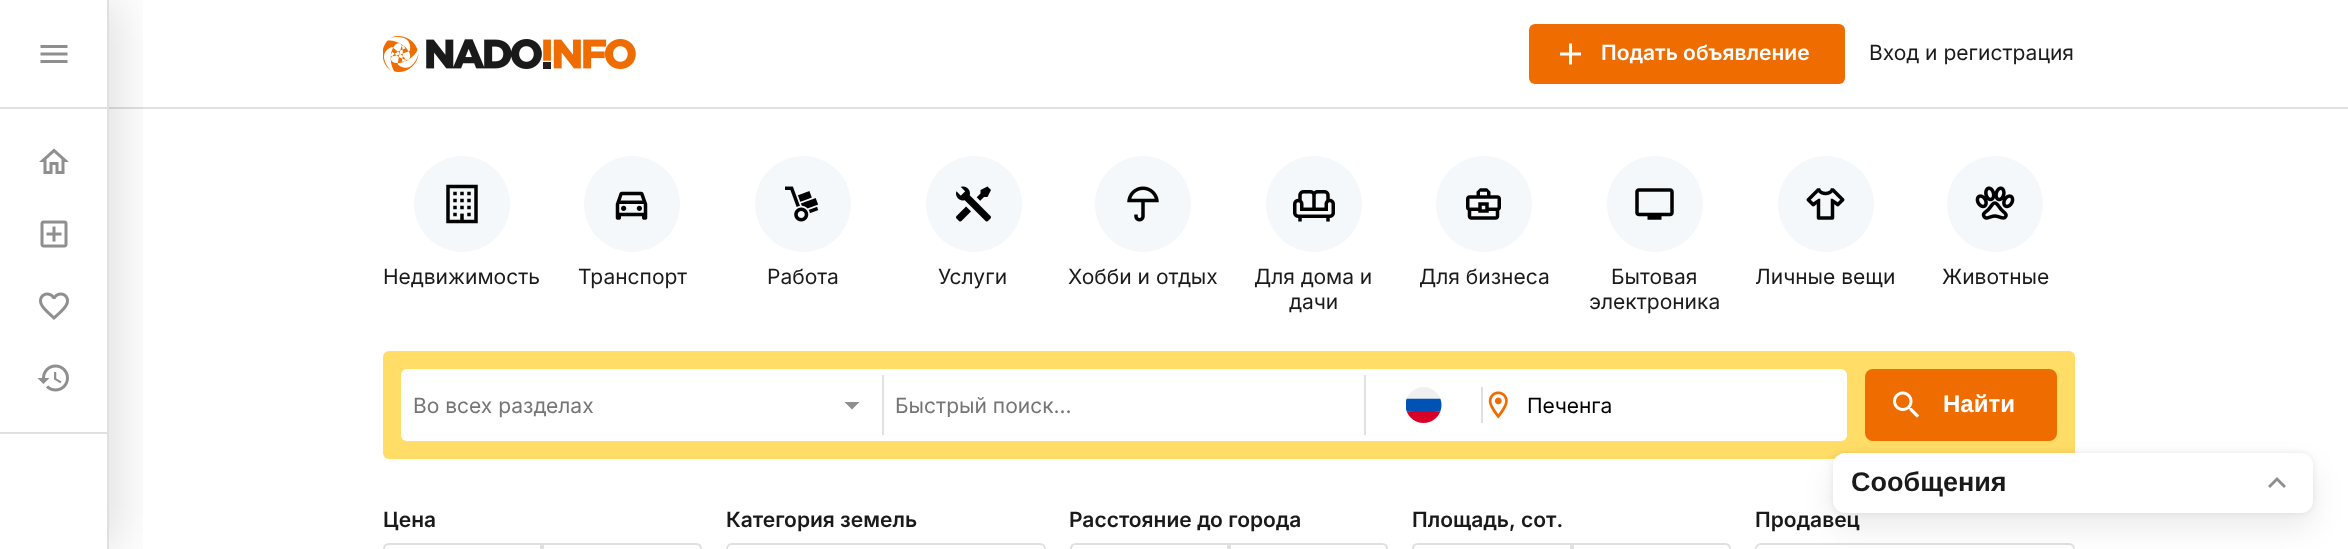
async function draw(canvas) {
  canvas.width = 2348
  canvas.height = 549
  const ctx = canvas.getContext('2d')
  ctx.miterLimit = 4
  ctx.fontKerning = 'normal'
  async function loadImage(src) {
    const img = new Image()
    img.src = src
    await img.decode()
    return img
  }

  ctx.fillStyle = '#fff'
  ctx.fillRect(0, 0, 2348, 549)
  ctx.fillStyle = '#e0e0e0'
  ctx.fillRect(108, 107, 2240, 2)
  ctx.save()
  ctx.beginPath()
  ctx.rect(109, 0, 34, 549)
  ctx.clip()
  ctx.fillStyle = '#0000001f'
  ctx.filter = 'blur(24px)'
  ctx.beginPath()
  ctx.rect(12, 0, 108, 549)
  ctx.fill()
  ctx.filter = 'none'
  ctx.restore()
  ctx.fillRect(107, 0, 2, 549)
  ctx.fillRect(0, 107, 107, 2)
  ctx.drawImage(await loadImage('image0.png'), 40, 45, 28, 18)
  ctx.fillRect(0, 432, 107, 2)
  ctx.drawImage(await loadImage('image1.png'), 39, 148, 30, 26)
  ctx.drawImage(await loadImage('image2.png'), 40, 220, 28, 28)
  ctx.drawImage(await loadImage('image3.png'), 39, 292, 30, 28)
  ctx.drawImage(await loadImage('image4.png'), 37, 364, 32, 28)
  ctx.drawImage(await loadImage('image5.png'), 383, 36, 253, 36)
  ctx.fillStyle = '#ef6c00'
  ctx.beginPath()
  ctx.roundRect(1529, 24, 316, 60, 6)
  ctx.fill()
  ctx.drawImage(await loadImage('image6.png'), 1560, 43, 21, 22)
  ctx.font = '600 21px Inter'
  ctx.fillStyle = '#fff'
  ctx.fillText('Подать объявление', 1601, 60)
  ctx.font = '21px Inter'
  ctx.fillStyle = '#1a1a1a'
  ctx.fillText('Вход и регистрация', 1869, 60)
  ctx.fillStyle = '#f5f8fa'
  ctx.beginPath()
  ctx.arc(462, 204, 48, 0, 2 * Math.PI)
  ctx.fill()
  ctx.drawImage(await loadImage('image7.png'), 446, 184, 32, 40)
  ctx.fillStyle = '#1a1a1a'
  ctx.fillText('Недвижимость', 383, 284)
  ctx.fillStyle = '#f5f8fa'
  ctx.beginPath()
  ctx.arc(632, 204, 48, 0, 2 * Math.PI)
  ctx.fill()
  ctx.drawImage(await loadImage('image8.png'), 615, 191, 33, 29)
  ctx.fillStyle = '#1a1a1a'
  ctx.fillText('Транспорт', 578, 284)
  ctx.fillStyle = '#f5f8fa'
  ctx.beginPath()
  ctx.arc(803, 204, 48, 0, 2 * Math.PI)
  ctx.fill()
  ctx.drawImage(await loadImage('image9.png'), 785, 186, 34, 36)
  ctx.fillStyle = '#1a1a1a'
  ctx.fillText('Работа', 767, 284)
  ctx.fillStyle = '#f5f8fa'
  ctx.beginPath()
  ctx.arc(974, 204, 48, 0, 2 * Math.PI)
  ctx.fill()
  ctx.drawImage(await loadImage('image10.png'), 956, 186, 35, 36)
  ctx.fillStyle = '#1a1a1a'
  ctx.fillText('Услуги', 938, 284)
  ctx.fillStyle = '#f5f8fa'
  ctx.beginPath()
  ctx.arc(1143, 204, 48, 0, 2 * Math.PI)
  ctx.fill()
  ctx.drawImage(await loadImage('image11.png'), 1127, 186, 32, 36)
  ctx.fillStyle = '#1a1a1a'
  ctx.fillText('Хобби и отдых', 1068, 284)
  ctx.fillStyle = '#f5f8fa'
  ctx.beginPath()
  ctx.arc(1314, 204, 48, 0, 2 * Math.PI)
  ctx.fill()
  ctx.drawImage(await loadImage('image12.png'), 1293, 190, 42, 32)
  ctx.fillStyle = '#1a1a1a'
  ctx.fillText('Для дома и', 1254, 284)
  ctx.fillText('дачи', 1289, 309)
  ctx.fillStyle = '#f5f8fa'
  ctx.beginPath()
  ctx.arc(1484, 204, 48, 0, 2 * Math.PI)
  ctx.fill()
  ctx.drawImage(await loadImage('image13.png'), 1466, 188, 35, 32)
  ctx.fillStyle = '#1a1a1a'
  ctx.fillText('Для бизнеса', 1419, 284)
  ctx.fillStyle = '#f5f8fa'
  ctx.beginPath()
  ctx.arc(1655, 204, 48, 0, 2 * Math.PI)
  ctx.fill()
  ctx.drawImage(await loadImage('image14.png'), 1635, 188, 39, 32)
  ctx.fillStyle = '#1a1a1a'
  ctx.fillText('Бытовая', 1611, 284)
  ctx.fillText('электроника', 1589, 309)
  ctx.fillStyle = '#f5f8fa'
  ctx.beginPath()
  ctx.arc(1826, 204, 48, 0, 2 * Math.PI)
  ctx.fill()
  ctx.drawImage(await loadImage('image15.png'), 1806, 188, 39, 32)
  ctx.fillStyle = '#1a1a1a'
  ctx.fillText('Личные вещи', 1755, 284)
  ctx.fillStyle = '#f5f8fa'
  ctx.beginPath()
  ctx.arc(1995, 204, 48, 0, 2 * Math.PI)
  ctx.fill()
  ctx.drawImage(await loadImage('image16.png'), 1975, 186, 40, 34)
  ctx.fillStyle = '#1a1a1a'
  ctx.fillText('Животные', 1942, 284)
  ctx.fillStyle = '#fd6'
  ctx.beginPath()
  ctx.roundRect(383, 351, 1692, 108, 6)
  ctx.fill()
  ctx.fillStyle = '#fff'
  ctx.beginPath()
  ctx.roundRect(401, 369, 1446, 72, 6)
  ctx.fill()
  ctx.fillStyle = '#e0e0e0'
  ctx.fillRect(882, 375, 2, 60)
  ctx.fillStyle = '#757575'
  ctx.fillText('Во всех разделах', 413, 413)
  ctx.fillStyle = '#8f8f8f'
  ctx.beginPath()
  ctx.moveTo(844.5, 402)
  ctx.lineTo(852, 409.5)
  ctx.lineTo(859.5, 402)
  ctx.closePath()
  ctx.fill()
  ctx.fillStyle = '#e0e0e0'
  ctx.fillRect(1364, 375, 2, 60)
  ctx.save()
  ctx.beginPath()
  ctx.rect(896, 392, 456, 25)
  ctx.clip()
  ctx.fillStyle = '#757575'
  ctx.fillText('Быстрый поиск...', 895, 413)
  ctx.restore()
  ctx.fillRect(1481, 387, 2, 36)
  ctx.drawImage(await loadImage('image17.png'), 1406, 387, 36, 36)
  ctx.drawImage(await loadImage('image18.png'), 1488, 391, 20, 28)
  ctx.fillStyle = '#000'
  ctx.fillText('Печенга', 1527, 413)
  ctx.fillStyle = '#ef6c00'
  ctx.beginPath()
  ctx.roundRect(1865, 369, 192, 72, 8)
  ctx.fill()
  ctx.drawImage(await loadImage('image19.png'), 1893, 391, 27, 27)
  ctx.font = 'bold 24px Liberation Sans'
  ctx.fillStyle = '#fff'
  ctx.fillText('Найти', 1943, 412)
  ctx.font = '600 21px Inter'
  ctx.fillStyle = '#1a1a1a'
  ctx.fillText('Цена', 383, 527)
  ctx.beginPath()
  ctx.moveTo(389, 544)
  ctx.lineTo(541, 544)
  ctx.lineTo(541, 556)
  ctx.lineTo(389, 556)
  ctx.bezierCurveTo(386, 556, 384, 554, 384, 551)
  ctx.lineTo(384, 549)
  ctx.bezierCurveTo(384, 546, 386, 544, 389, 544)
  ctx.closePath()
  ctx.strokeStyle = '#e0e0e0'
  ctx.lineWidth = 2
  ctx.stroke()
  ctx.beginPath()
  ctx.moveTo(543, 544)
  ctx.lineTo(696, 544)
  ctx.bezierCurveTo(699, 544, 701, 546, 701, 549)
  ctx.lineTo(701, 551)
  ctx.bezierCurveTo(701, 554, 699, 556, 696, 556)
  ctx.lineTo(543, 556)
  ctx.closePath()
  ctx.stroke()
  ctx.fillText('Категория земель', 726, 527)
  ctx.beginPath()
  ctx.roundRect(727, 544, 318, 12, 5)
  ctx.stroke()
  ctx.fillText('Расстояние до города', 1069, 527)
  ctx.beginPath()
  ctx.moveTo(1076, 544)
  ctx.lineTo(1228, 544)
  ctx.lineTo(1228, 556)
  ctx.lineTo(1076, 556)
  ctx.bezierCurveTo(1073, 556, 1071, 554, 1071, 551)
  ctx.lineTo(1071, 549)
  ctx.bezierCurveTo(1071, 546, 1073, 544, 1076, 544)
  ctx.closePath()
  ctx.stroke()
  ctx.beginPath()
  ctx.moveTo(1230, 544)
  ctx.lineTo(1382, 544)
  ctx.bezierCurveTo(1385, 544, 1387, 546, 1387, 549)
  ctx.lineTo(1387, 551)
  ctx.bezierCurveTo(1387, 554, 1385, 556, 1382, 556)
  ctx.lineTo(1230, 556)
  ctx.closePath()
  ctx.stroke()
  ctx.fillText('Площадь, сот.', 1412, 527)
  ctx.beginPath()
  ctx.moveTo(1418, 544)
  ctx.lineTo(1571, 544)
  ctx.lineTo(1571, 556)
  ctx.lineTo(1418, 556)
  ctx.bezierCurveTo(1415, 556, 1413, 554, 1413, 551)
  ctx.lineTo(1413, 549)
  ctx.bezierCurveTo(1413, 546, 1415, 544, 1418, 544)
  ctx.closePath()
  ctx.stroke()
  ctx.beginPath()
  ctx.moveTo(1573, 544)
  ctx.lineTo(1725, 544)
  ctx.bezierCurveTo(1728, 544, 1730, 546, 1730, 549)
  ctx.lineTo(1730, 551)
  ctx.bezierCurveTo(1730, 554, 1728, 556, 1725, 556)
  ctx.lineTo(1573, 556)
  ctx.closePath()
  ctx.stroke()
  ctx.fillText('Продавец', 1755, 527)
  ctx.beginPath()
  ctx.roundRect(1756, 544, 318, 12, 5)
  ctx.stroke()
  ctx.fillStyle = '#00000014'
  ctx.filter = 'blur(15px)'
  ctx.beginPath()
  ctx.roundRect(1833, 468, 480, 60, 12)
  ctx.fill()
  ctx.filter = 'none'
  ctx.filter = 'blur(3px)'
  ctx.beginPath()
  ctx.roundRect(1833, 453, 480, 60, 12)
  ctx.fill()
  ctx.filter = 'none'
  ctx.fillStyle = '#fff'
  ctx.beginPath()
  ctx.roundRect(1833, 453, 480, 60, 12)
  ctx.fill()
  ctx.font = 'bold 27px Liberation Sans'
  ctx.fillStyle = '#1a1a1a'
  ctx.fillText('Сообщения', 1851, 491)
  ctx.fillStyle = '#8f8f8f'
  ctx.beginPath()
  ctx.moveTo(2270, 488)
  ctx.lineTo(2277, 481)
  ctx.lineTo(2284, 488)
  ctx.lineTo(2286, 486)
  ctx.lineTo(2277, 477)
  ctx.lineTo(2268, 486)
  ctx.closePath()
  ctx.fill()
}

draw(document.querySelector('canvas'))
